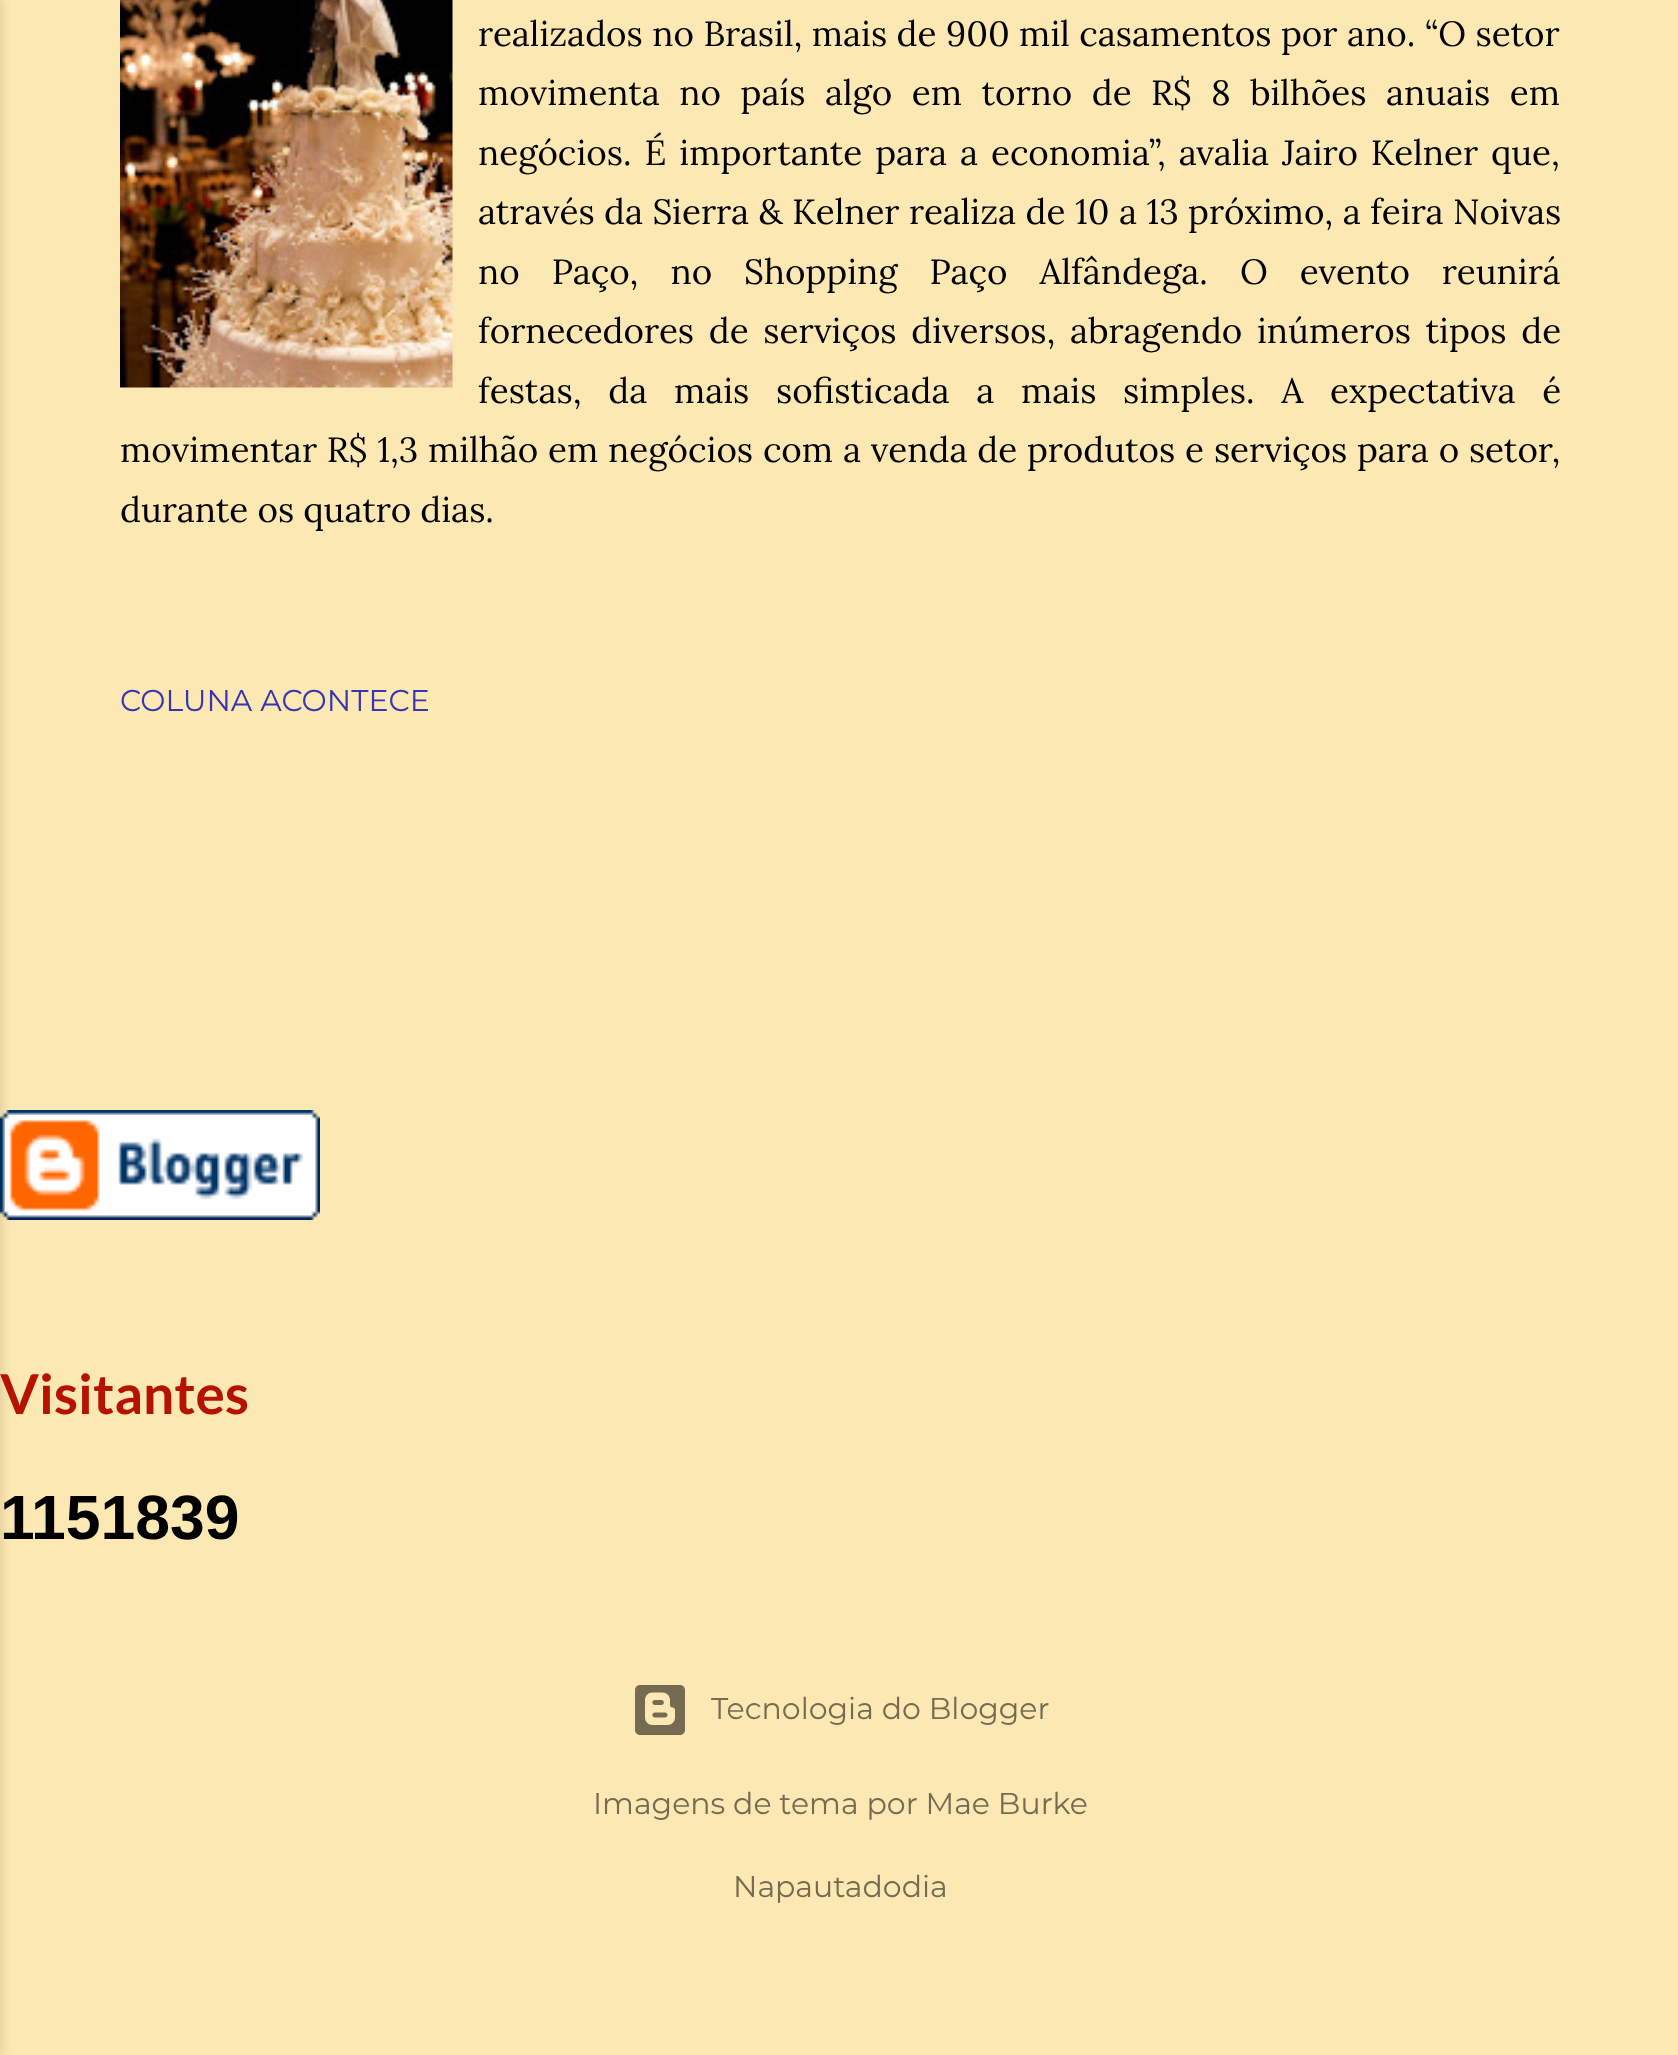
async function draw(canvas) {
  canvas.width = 1678
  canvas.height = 2055
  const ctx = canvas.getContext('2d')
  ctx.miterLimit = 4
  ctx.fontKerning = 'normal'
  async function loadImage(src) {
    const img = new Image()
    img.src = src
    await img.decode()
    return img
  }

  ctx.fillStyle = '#fce8b2'
  ctx.fillRect(0, 0, 1678, 2055)
  ctx.drawImage(await loadImage('image1.png'), 0, 1110, 320, 110)
  ctx.fillStyle = '#0000001a'
  ctx.filter = 'blur(4px)'
  ctx.beginPath()
  ctx.rect(-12, 0, 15, 2055)
  ctx.fill()
  ctx.filter = 'none'
  ctx.drawImage(await loadImage('image0.png'), 120, 0, 333, 388)
  ctx.wordSpacing = '0.25px'
  ctx.font = '35px Lora'
  ctx.fillStyle = '#000'
  ctx.fillText('realizados no Brasil, mais de 900 mil casamentos por ano. “O setor', 478, 46)
  ctx.wordSpacing = '10.25px'
  ctx.fillText('movimenta no país algo em torno de R$ 8 bilhões anuais em', 478, 105)
  ctx.wordSpacing = '3.75px'
  ctx.fillText('negócios. É importante para a economia”, avalia Jairo Kelner que,', 478, 165)
  ctx.wordSpacing = '0.25px'
  ctx.fillText('através da Sierra & Kelner realiza de 10 a 13 próximo, a feira Noivas', 478, 224)
  ctx.wordSpacing = '22.75px'
  ctx.fillText('no Paço, no Shopping Paço Alfândega. O evento reunirá', 478, 284)
  ctx.wordSpacing = '5.5px'
  ctx.fillText('fornecedores de serviços diversos, abragendo inúmeros tipos de', 478, 343)
  ctx.wordSpacing = '17.5px'
  ctx.fillText('festas, da mais sofisticada a mais simples. A expectativa é', 478, 403)
  ctx.wordSpacing = '0.6px'
  ctx.fillText('movimentar R$ 1,3 milhão em negócios com a venda de produtos e serviços para o setor,', 120, 462)
  ctx.wordSpacing = '0px'
  ctx.fillText('durante os quatro dias.', 120, 522)
  ctx.font = '30px Montserrat'
  ctx.fillStyle = '#3835b5'
  ctx.fillText('COLUNA ACONTECE', 120, 711)
  ctx.font = 'bold 55px Lato'
  ctx.fillStyle = '#b51200'
  ctx.fillText('Visitantes', 0, 1414)
  ctx.font = 'bold 62.5px Liberation Sans'
  ctx.fillStyle = '#000'
  ctx.fillText('1', 0, 1539)
  ctx.fillText('151839', 31, 1539)
  ctx.drawImage(await loadImage('image2.png'), 635, 1685, 50, 50)
  ctx.font = '30px Montserrat'
  ctx.fillStyle = '#756b52'
  ctx.fillText('Tecnologia do Blogger', 711, 1719)
  ctx.fillText('Imagens de tema por Mae Burke', 593, 1814)
  ctx.fillText('Napautadodia', 733, 1897)
}

draw(document.querySelector('canvas'))
